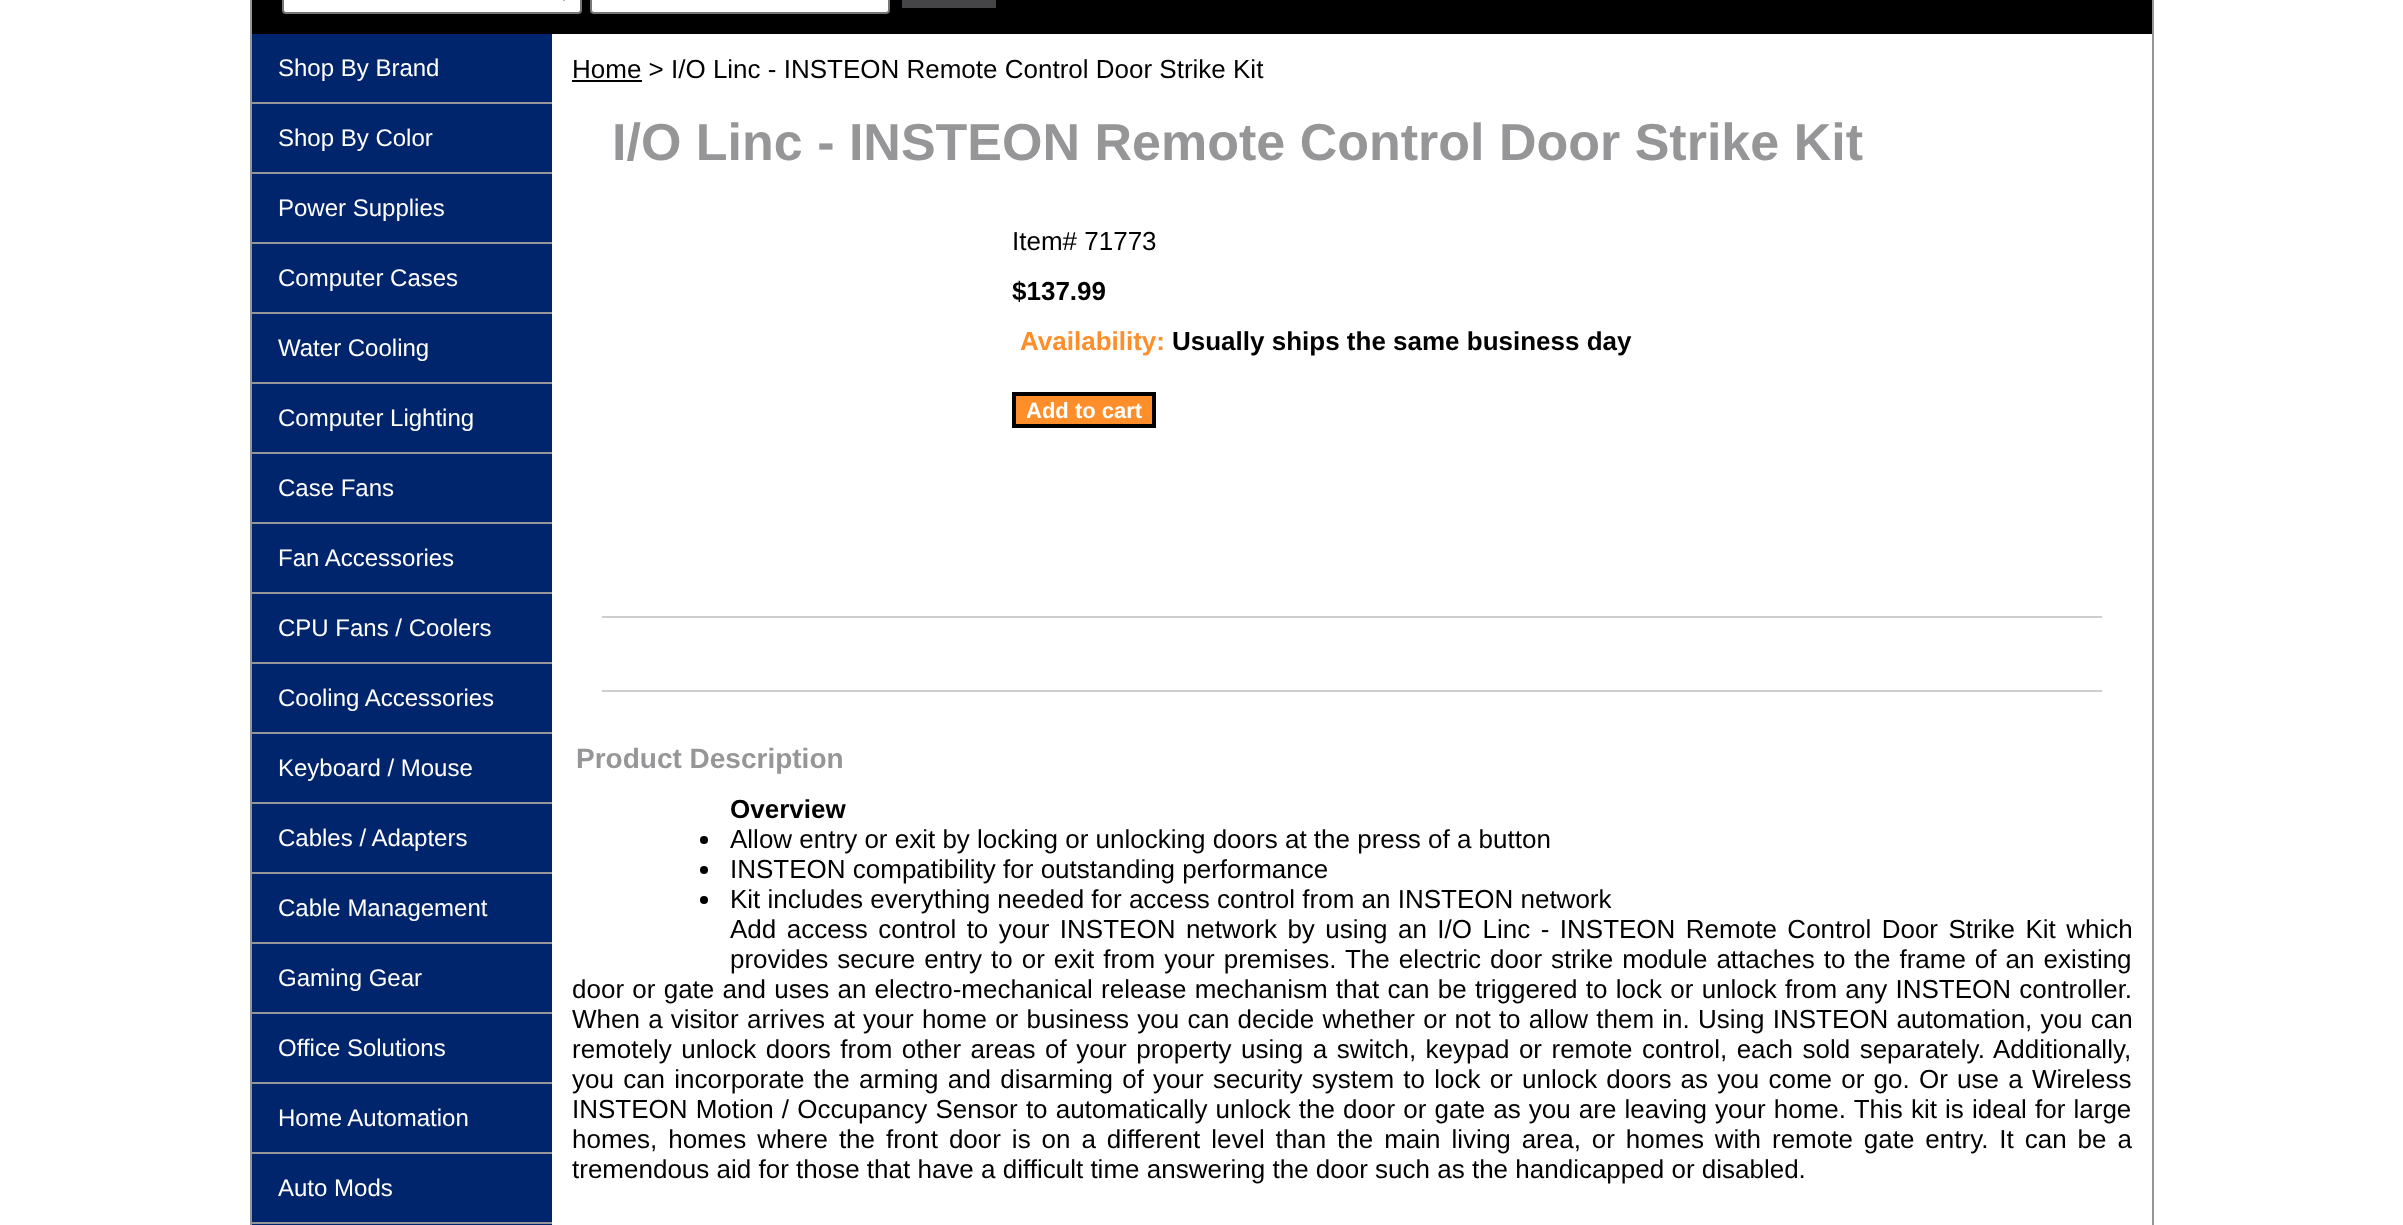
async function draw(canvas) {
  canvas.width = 2403
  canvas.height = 1225
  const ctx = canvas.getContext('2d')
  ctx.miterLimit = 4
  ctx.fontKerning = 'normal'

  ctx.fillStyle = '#fff'
  ctx.fillRect(0, 0, 2403, 1225)
  ctx.strokeStyle = '#969698'
  ctx.lineWidth = 2
  ctx.strokeRect(251, -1, 1902, 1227)
  ctx.fillStyle = '#000'
  ctx.fillRect(252, 0, 1900, 34)
  ctx.fillStyle = '#fff'
  ctx.beginPath()
  ctx.roundRect(283, -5, 298, 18, 3)
  ctx.fill()
  ctx.strokeStyle = '#767676'
  ctx.stroke()
  ctx.beginPath()
  ctx.moveTo(556, -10)
  ctx.lineTo(564, -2)
  ctx.lineTo(572, -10)
  ctx.strokeStyle = '#000'
  ctx.lineWidth = 4
  ctx.stroke()
  ctx.beginPath()
  ctx.roundRect(591, -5, 298, 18, 3)
  ctx.fill()
  ctx.strokeStyle = '#767676'
  ctx.lineWidth = 2
  ctx.stroke()
  ctx.fillStyle = '#454547'
  ctx.fillRect(902, 0, 94, 8)
  ctx.fillStyle = '#00256c'
  ctx.fillRect(252, 34, 300, 1191)
  ctx.fillStyle = '#969698'
  ctx.fillRect(252, 102, 300, 2)
  ctx.font = '24px Liberation Sans'
  ctx.fillStyle = '#fff'
  ctx.fillText('Shop By Brand', 278, 76)
  ctx.fillStyle = '#969698'
  ctx.fillRect(252, 172, 300, 2)
  ctx.fillStyle = '#fff'
  ctx.fillText('Shop By Color', 278, 146)
  ctx.fillStyle = '#969698'
  ctx.fillRect(252, 242, 300, 2)
  ctx.fillStyle = '#fff'
  ctx.fillText('Power Supplies', 278, 216)
  ctx.fillStyle = '#969698'
  ctx.fillRect(252, 312, 300, 2)
  ctx.fillStyle = '#fff'
  ctx.fillText('Computer Cases', 278, 286)
  ctx.fillStyle = '#969698'
  ctx.fillRect(252, 382, 300, 2)
  ctx.fillStyle = '#fff'
  ctx.fillText('Water Cooling', 278, 356)
  ctx.fillStyle = '#969698'
  ctx.fillRect(252, 452, 300, 2)
  ctx.fillStyle = '#fff'
  ctx.fillText('Computer Lighting', 278, 426)
  ctx.fillStyle = '#969698'
  ctx.fillRect(252, 522, 300, 2)
  ctx.fillStyle = '#fff'
  ctx.fillText('Case Fans', 278, 496)
  ctx.fillStyle = '#969698'
  ctx.fillRect(252, 592, 300, 2)
  ctx.fillStyle = '#fff'
  ctx.fillText('Fan Accessories', 278, 566)
  ctx.fillStyle = '#969698'
  ctx.fillRect(252, 662, 300, 2)
  ctx.fillStyle = '#fff'
  ctx.fillText('CPU Fans / Coolers', 278, 636)
  ctx.fillStyle = '#969698'
  ctx.fillRect(252, 732, 300, 2)
  ctx.fillStyle = '#fff'
  ctx.fillText('Cooling Accessories', 278, 706)
  ctx.fillStyle = '#969698'
  ctx.fillRect(252, 802, 300, 2)
  ctx.fillStyle = '#fff'
  ctx.fillText('Keyboard / Mouse', 278, 776)
  ctx.fillStyle = '#969698'
  ctx.fillRect(252, 872, 300, 2)
  ctx.fillStyle = '#fff'
  ctx.fillText('Cables / Adapters', 278, 846)
  ctx.fillStyle = '#969698'
  ctx.fillRect(252, 942, 300, 2)
  ctx.fillStyle = '#fff'
  ctx.fillText('Cable Management', 278, 916)
  ctx.fillStyle = '#969698'
  ctx.fillRect(252, 1012, 300, 2)
  ctx.fillStyle = '#fff'
  ctx.fillText('Gaming Gear', 278, 986)
  ctx.fillStyle = '#969698'
  ctx.fillRect(252, 1082, 300, 2)
  ctx.fillStyle = '#fff'
  ctx.fillText('Office Solutions', 278, 1056)
  ctx.fillStyle = '#969698'
  ctx.fillRect(252, 1152, 300, 2)
  ctx.fillStyle = '#fff'
  ctx.fillText('Home Automation', 278, 1126)
  ctx.fillStyle = '#969698'
  ctx.fillRect(252, 1222, 300, 2)
  ctx.fillStyle = '#fff'
  ctx.fillText('Auto Mods', 278, 1196)
  ctx.font = '26px Liberation Sans'
  ctx.fillStyle = '#000'
  ctx.fillText('Home > I/O Linc - INSTEON Remote Control Door Strike Kit', 572, 78)
  ctx.fillRect(572, 80, 70, 2)
  ctx.font = 'bold 52px Liberation Sans'
  ctx.fillStyle = '#969698'
  ctx.fillText('I/O Linc - INSTEON Remote Control Door Strike Kit', 612, 160)
  ctx.font = '26px Liberation Sans'
  ctx.fillStyle = '#000'
  ctx.fillText('Item# 71773', 1012, 250)
  ctx.font = 'bold 26px Liberation Sans'
  ctx.fillText('$137.99', 1012, 300)
  ctx.fillStyle = '#fe8e2a'
  ctx.fillText('Availability:', 1020, 350)
  ctx.fillStyle = '#000'
  ctx.fillText('Usually ships the same business day', 1172, 350)
  ctx.fillStyle = '#fe8e2a'
  ctx.beginPath()
  ctx.rect(1014, 394, 140, 32)
  ctx.fill()
  ctx.strokeStyle = '#000'
  ctx.lineWidth = 4
  ctx.stroke()
  ctx.font = 'bold 22px Liberation Sans'
  ctx.fillStyle = '#fff'
  ctx.fillText('Add to cart', 1026, 418)
  ctx.fillStyle = '#cfcece'
  ctx.fillRect(602, 616, 1500, 2)
  ctx.fillRect(602, 690, 1500, 2)
  ctx.font = 'bold 28px Liberation Sans'
  ctx.fillStyle = '#969698'
  ctx.fillText('Product Description', 576, 768)
  ctx.font = 'bold 26px Liberation Sans'
  ctx.fillStyle = '#000'
  ctx.fillText('Overview', 730, 818)
  ctx.beginPath()
  ctx.arc(704, 840, 4, 0, 2 * Math.PI)
  ctx.fill()
  ctx.font = '26px Liberation Sans'
  ctx.fillText('Allow entry or exit by locking or unlocking doors at the press of a button', 730, 848)
  ctx.beginPath()
  ctx.arc(704, 870, 4, 0, 2 * Math.PI)
  ctx.fill()
  ctx.fillText('INSTEON compatibility for outstanding performance', 730, 878)
  ctx.beginPath()
  ctx.arc(704, 900, 4, 0, 2 * Math.PI)
  ctx.fill()
  ctx.fillText('Kit includes everything needed for access control from an INSTEON network', 730, 908)
  ctx.wordSpacing = '3.25px'
  ctx.fillText('Add access control to your INSTEON network by using an I/O Linc - INSTEON Remote Control Door Strike Kit which', 730, 938)
  ctx.wordSpacing = '1.75px'
  ctx.fillText('provides secure entry to or exit from your premises. The electric door strike module attaches to the frame of an existing', 730, 968)
  ctx.wordSpacing = '1.05px'
  ctx.fillText('door or gate and uses an electro-mechanical release mechanism that can be triggered to lock or unlock from any INSTEON controller.', 572, 998)
  ctx.wordSpacing = '1px'
  ctx.fillText('When a visitor arrives at your home or business you can decide whether or not to allow them in. Using INSTEON automation, you can', 572, 1028)
  ctx.wordSpacing = '2.25px'
  ctx.fillText('remotely unlock doors from other areas of your property using a switch, keypad or remote control, each sold separately. Additionally,', 572, 1058)
  ctx.wordSpacing = '2px'
  ctx.fillText('you can incorporate the arming and disarming of your security system to lock or unlock doors as you come or go. Or use a Wireless', 572, 1088)
  ctx.wordSpacing = '0.9px'
  ctx.fillText('INSTEON Motion / Occupancy Sensor to automatically unlock the door or gate as you are leaving your home. This kit is ideal for large', 572, 1118)
  ctx.wordSpacing = '3.7px'
  ctx.fillText('homes, homes where the front door is on a different level than the main living area, or homes with remote gate entry. It can be a', 572, 1148)
  ctx.wordSpacing = '0px'
  ctx.fillText('tremendous aid for those that have a difficult time answering the door such as the handicapped or disabled.', 572, 1178)
}

draw(document.querySelector('canvas'))
